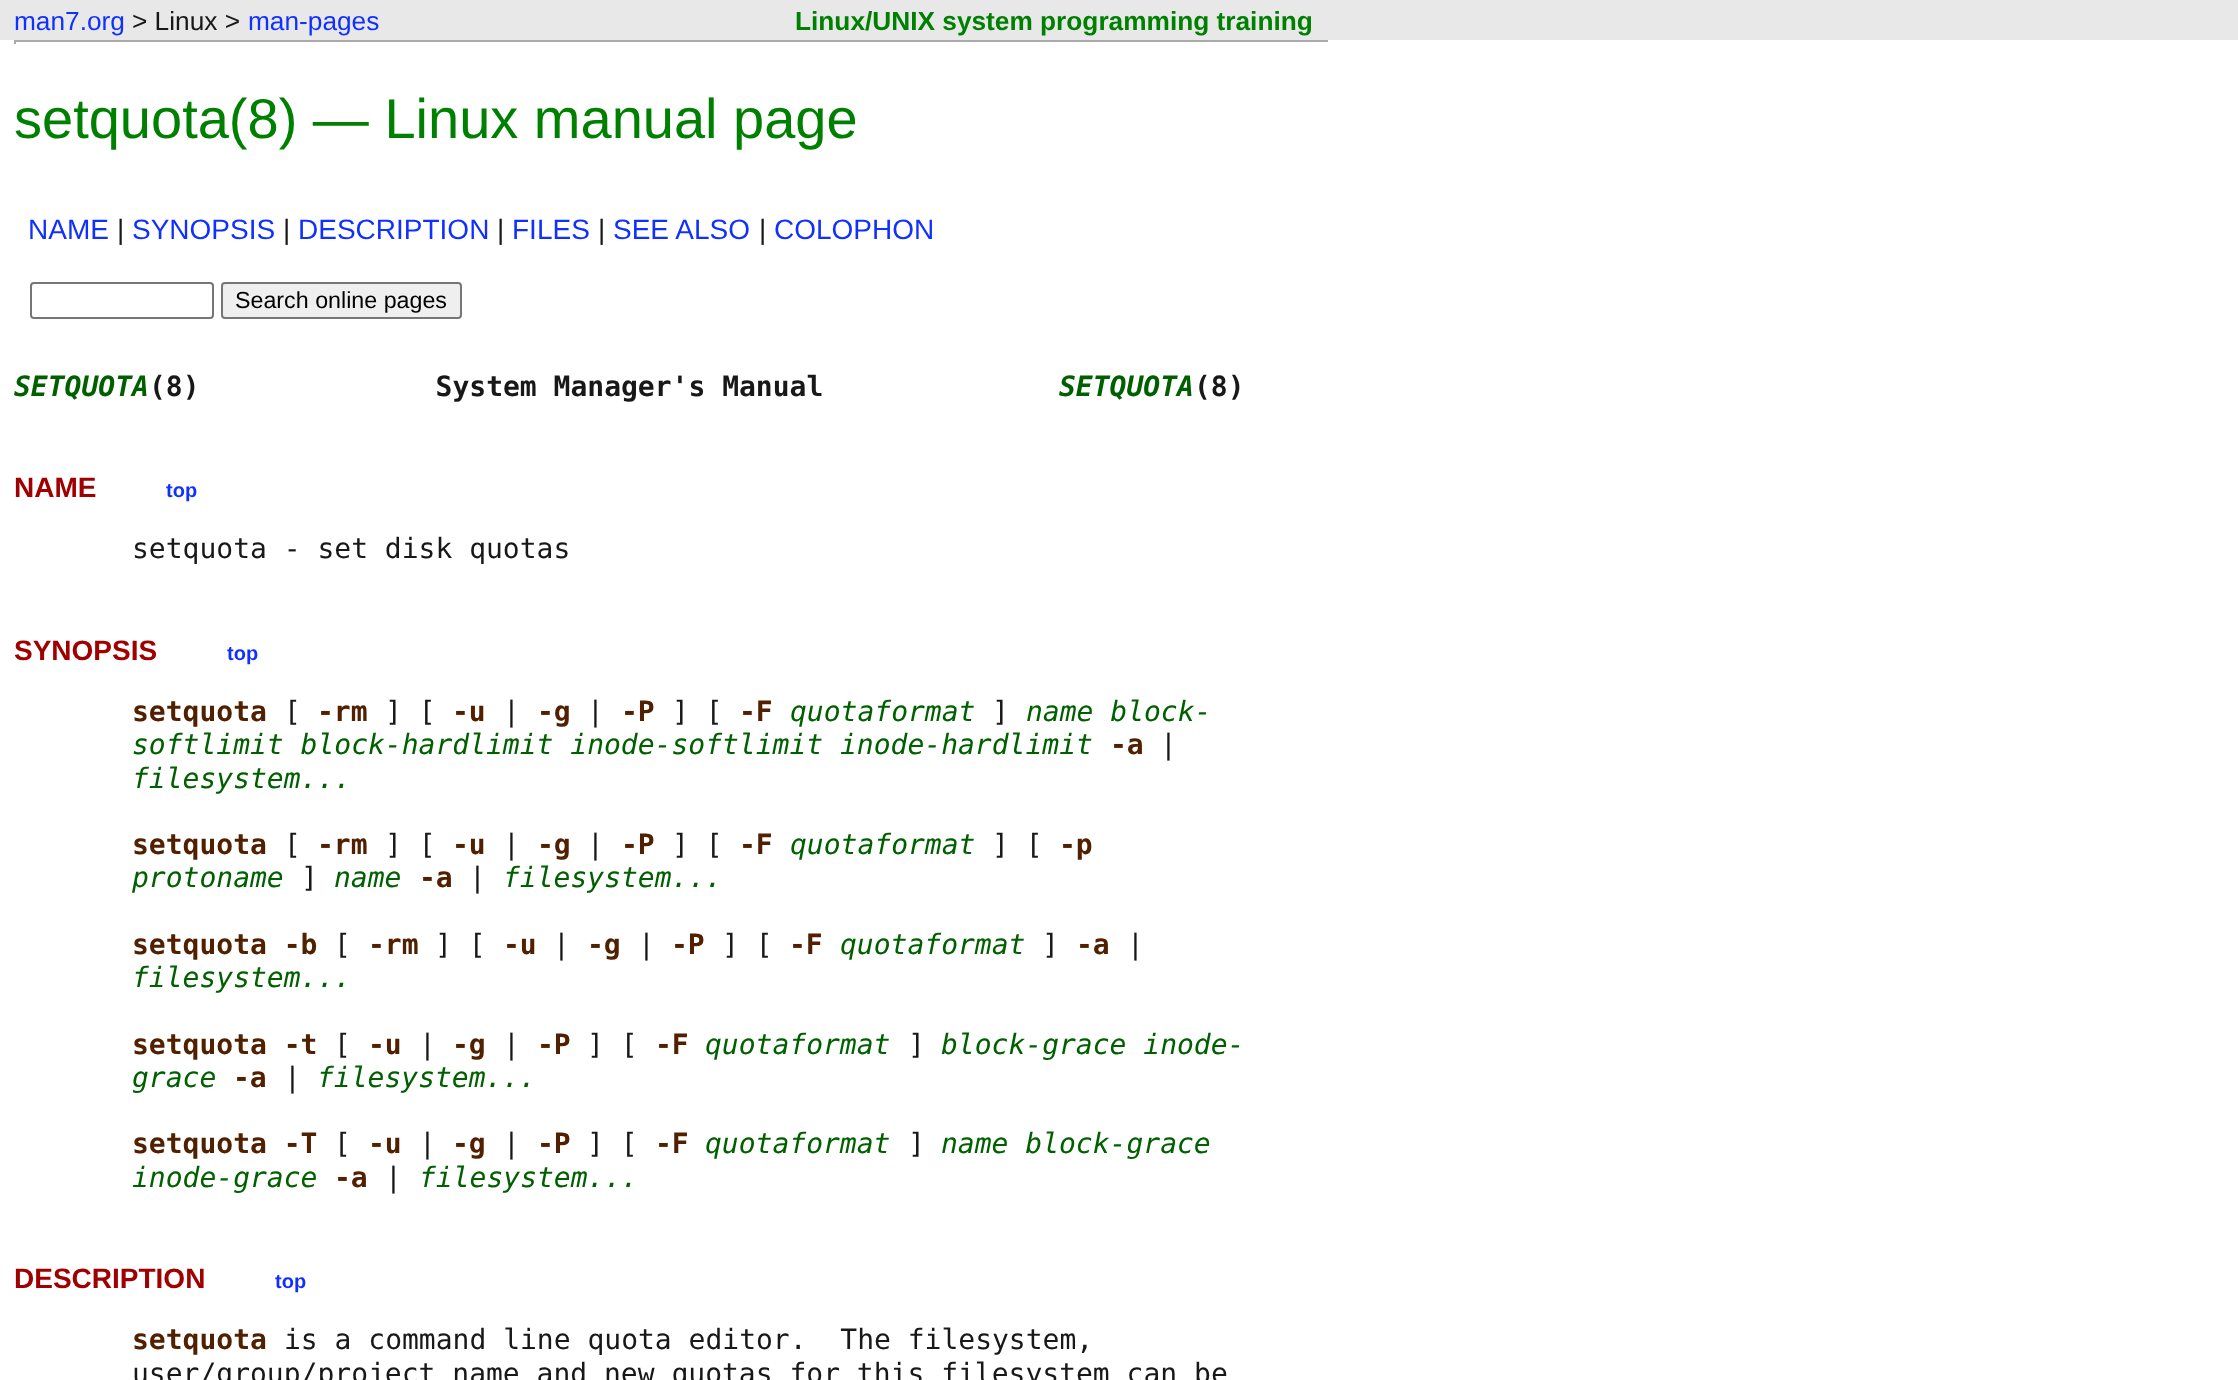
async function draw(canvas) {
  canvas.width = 2238
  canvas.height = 1380
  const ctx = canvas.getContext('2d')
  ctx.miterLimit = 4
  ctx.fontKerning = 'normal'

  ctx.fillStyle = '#fff'
  ctx.fillRect(0, 0, 2238, 1380)
  ctx.fillStyle = '#e8e8e8'
  ctx.fillRect(0, 0, 2238, 40)
  ctx.font = '26.25px Liberation Sans'
  ctx.fillStyle = '#1030ff'
  ctx.fillText('man7.org', 14, 30)
  ctx.fillStyle = '#181818'
  ctx.fillText('> Linux >', 132, 30)
  ctx.fillStyle = '#1030ff'
  ctx.fillText('man-pages', 248, 30)
  ctx.font = 'bold 26.25px Liberation Sans'
  ctx.fillStyle = '#008000'
  ctx.fillText('Linux/UNIX system programming training', 795, 30)
  ctx.fillStyle = '#aaa'
  ctx.fillRect(14, 40, 1316, 2)
  ctx.fillStyle = '#fff'
  ctx.fillRect(1328, 40, 2, 4)
  ctx.fillStyle = '#aaa'
  ctx.fillRect(14, 40, 2, 4)
  ctx.font = '56px Liberation Sans'
  ctx.fillStyle = '#008000'
  ctx.fillText('setquota(8) — Linux manual page', 14, 138)
  ctx.font = '28px Liberation Sans'
  ctx.fillStyle = '#1030ff'
  ctx.fillText('NAME', 28, 239)
  ctx.fillStyle = '#181818'
  ctx.fillText('|', 117, 239)
  ctx.fillStyle = '#1030ff'
  ctx.fillText('SYNOPSIS', 132, 239)
  ctx.fillStyle = '#181818'
  ctx.fillText('|', 283, 239)
  ctx.fillStyle = '#1030ff'
  ctx.fillText('DESCRIPTION', 298, 239)
  ctx.fillStyle = '#181818'
  ctx.fillText('|', 497, 239)
  ctx.fillStyle = '#1030ff'
  ctx.fillText('FILES', 512, 239)
  ctx.fillStyle = '#181818'
  ctx.fillText('|', 598, 239)
  ctx.fillStyle = '#1030ff'
  ctx.fillText('SEE ALSO', 613, 239)
  ctx.fillStyle = '#181818'
  ctx.fillText('|', 759, 239)
  ctx.fillStyle = '#1030ff'
  ctx.fillText('COLOPHON', 774, 239)
  ctx.beginPath()
  ctx.roundRect(31, 283, 182, 35, 3)
  ctx.strokeStyle = '#767676'
  ctx.lineWidth = 2
  ctx.stroke()
  ctx.fillStyle = '#efefef'
  ctx.beginPath()
  ctx.roundRect(222, 283, 239, 35, 3)
  ctx.fill()
  ctx.stroke()
  ctx.font = '23.25px Liberation Sans'
  ctx.fillStyle = '#000'
  ctx.fillText('Search online pages', 235, 308)
  ctx.font = 'italic bold 28px DejaVu Sans Mono'
  ctx.fillStyle = '#006000'
  ctx.fillText('SETQUOTA', 14, 396)
  ctx.font = 'bold 28px DejaVu Sans Mono'
  ctx.fillStyle = '#181818'
  ctx.fillText('(8)              System Manager\'s Manual', 149, 396)
  ctx.font = 'italic bold 28px DejaVu Sans Mono'
  ctx.fillStyle = '#006000'
  ctx.fillText('SETQUOTA', 1059, 396)
  ctx.font = 'bold 28px DejaVu Sans Mono'
  ctx.fillStyle = '#181818'
  ctx.fillText('(8)', 1194, 396)
  ctx.font = 'bold 28px Liberation Sans'
  ctx.fillStyle = '#a00000'
  ctx.fillText('NAME', 14, 497)
  ctx.font = 'bold 20px Liberation Sans'
  ctx.fillStyle = '#1030ff'
  ctx.fillText('top', 166, 497)
  ctx.font = '28px DejaVu Sans Mono'
  ctx.fillStyle = '#181818'
  ctx.fillText('setquota - set disk quotas', 132, 558)
  ctx.font = 'bold 28px Liberation Sans'
  ctx.fillStyle = '#a00000'
  ctx.fillText('SYNOPSIS', 14, 660)
  ctx.font = 'bold 20px Liberation Sans'
  ctx.fillStyle = '#1030ff'
  ctx.fillText('top', 227, 660)
  ctx.font = 'bold 28px DejaVu Sans Mono'
  ctx.fillStyle = '#502000'
  ctx.fillText('setquota', 132, 721)
  ctx.font = '28px DejaVu Sans Mono'
  ctx.fillStyle = '#181818'
  ctx.fillText('[', 284, 721)
  ctx.font = 'bold 28px DejaVu Sans Mono'
  ctx.fillStyle = '#502000'
  ctx.fillText('-rm', 317, 721)
  ctx.font = '28px DejaVu Sans Mono'
  ctx.fillStyle = '#181818'
  ctx.fillText('] [', 385, 721)
  ctx.font = 'bold 28px DejaVu Sans Mono'
  ctx.fillStyle = '#502000'
  ctx.fillText('-u', 452, 721)
  ctx.font = '28px DejaVu Sans Mono'
  ctx.fillStyle = '#181818'
  ctx.fillText('|', 503, 721)
  ctx.font = 'bold 28px DejaVu Sans Mono'
  ctx.fillStyle = '#502000'
  ctx.fillText('-g', 537, 721)
  ctx.font = '28px DejaVu Sans Mono'
  ctx.fillStyle = '#181818'
  ctx.fillText('|', 587, 721)
  ctx.font = 'bold 28px DejaVu Sans Mono'
  ctx.fillStyle = '#502000'
  ctx.fillText('-P', 621, 721)
  ctx.font = '28px DejaVu Sans Mono'
  ctx.fillStyle = '#181818'
  ctx.fillText('] [', 672, 721)
  ctx.font = 'bold 28px DejaVu Sans Mono'
  ctx.fillStyle = '#502000'
  ctx.fillText('-F', 739, 721)
  ctx.font = 'italic 28px DejaVu Sans Mono'
  ctx.fillStyle = '#006000'
  ctx.fillText('quotaformat', 790, 721)
  ctx.font = '28px DejaVu Sans Mono'
  ctx.fillStyle = '#181818'
  ctx.fillText(']', 992, 721)
  ctx.font = 'italic 28px DejaVu Sans Mono'
  ctx.fillStyle = '#006000'
  ctx.fillText('name block-', 1026, 721)
  ctx.fillText('softlimit block-hardlimit inode-softlimit inode-hardlimit', 132, 754)
  ctx.font = 'bold 28px DejaVu Sans Mono'
  ctx.fillStyle = '#502000'
  ctx.fillText('-a', 1110, 754)
  ctx.font = '28px DejaVu Sans Mono'
  ctx.fillStyle = '#181818'
  ctx.fillText('|', 1160, 754)
  ctx.font = 'italic 28px DejaVu Sans Mono'
  ctx.fillStyle = '#006000'
  ctx.fillText('filesystem...', 132, 788)
  ctx.font = 'bold 28px DejaVu Sans Mono'
  ctx.fillStyle = '#502000'
  ctx.fillText('setquota', 132, 854)
  ctx.font = '28px DejaVu Sans Mono'
  ctx.fillStyle = '#181818'
  ctx.fillText('[', 284, 854)
  ctx.font = 'bold 28px DejaVu Sans Mono'
  ctx.fillStyle = '#502000'
  ctx.fillText('-rm', 317, 854)
  ctx.font = '28px DejaVu Sans Mono'
  ctx.fillStyle = '#181818'
  ctx.fillText('] [', 385, 854)
  ctx.font = 'bold 28px DejaVu Sans Mono'
  ctx.fillStyle = '#502000'
  ctx.fillText('-u', 452, 854)
  ctx.font = '28px DejaVu Sans Mono'
  ctx.fillStyle = '#181818'
  ctx.fillText('|', 503, 854)
  ctx.font = 'bold 28px DejaVu Sans Mono'
  ctx.fillStyle = '#502000'
  ctx.fillText('-g', 537, 854)
  ctx.font = '28px DejaVu Sans Mono'
  ctx.fillStyle = '#181818'
  ctx.fillText('|', 587, 854)
  ctx.font = 'bold 28px DejaVu Sans Mono'
  ctx.fillStyle = '#502000'
  ctx.fillText('-P', 621, 854)
  ctx.font = '28px DejaVu Sans Mono'
  ctx.fillStyle = '#181818'
  ctx.fillText('] [', 672, 854)
  ctx.font = 'bold 28px DejaVu Sans Mono'
  ctx.fillStyle = '#502000'
  ctx.fillText('-F', 739, 854)
  ctx.font = 'italic 28px DejaVu Sans Mono'
  ctx.fillStyle = '#006000'
  ctx.fillText('quotaformat', 790, 854)
  ctx.font = '28px DejaVu Sans Mono'
  ctx.fillStyle = '#181818'
  ctx.fillText('] [', 992, 854)
  ctx.font = 'bold 28px DejaVu Sans Mono'
  ctx.fillStyle = '#502000'
  ctx.fillText('-p', 1059, 854)
  ctx.font = 'italic 28px DejaVu Sans Mono'
  ctx.fillStyle = '#006000'
  ctx.fillText('protoname', 132, 887)
  ctx.font = '28px DejaVu Sans Mono'
  ctx.fillStyle = '#181818'
  ctx.fillText(']', 301, 887)
  ctx.font = 'italic 28px DejaVu Sans Mono'
  ctx.fillStyle = '#006000'
  ctx.fillText('name', 334, 887)
  ctx.font = 'bold 28px DejaVu Sans Mono'
  ctx.fillStyle = '#502000'
  ctx.fillText('-a', 419, 887)
  ctx.font = '28px DejaVu Sans Mono'
  ctx.fillStyle = '#181818'
  ctx.fillText('|', 469, 887)
  ctx.font = 'italic 28px DejaVu Sans Mono'
  ctx.fillStyle = '#006000'
  ctx.fillText('filesystem...', 503, 887)
  ctx.font = 'bold 28px DejaVu Sans Mono'
  ctx.fillStyle = '#502000'
  ctx.fillText('setquota -b', 132, 954)
  ctx.font = '28px DejaVu Sans Mono'
  ctx.fillStyle = '#181818'
  ctx.fillText('[', 334, 954)
  ctx.font = 'bold 28px DejaVu Sans Mono'
  ctx.fillStyle = '#502000'
  ctx.fillText('-rm', 368, 954)
  ctx.font = '28px DejaVu Sans Mono'
  ctx.fillStyle = '#181818'
  ctx.fillText('] [', 435, 954)
  ctx.font = 'bold 28px DejaVu Sans Mono'
  ctx.fillStyle = '#502000'
  ctx.fillText('-u', 503, 954)
  ctx.font = '28px DejaVu Sans Mono'
  ctx.fillStyle = '#181818'
  ctx.fillText('|', 553, 954)
  ctx.font = 'bold 28px DejaVu Sans Mono'
  ctx.fillStyle = '#502000'
  ctx.fillText('-g', 587, 954)
  ctx.font = '28px DejaVu Sans Mono'
  ctx.fillStyle = '#181818'
  ctx.fillText('|', 638, 954)
  ctx.font = 'bold 28px DejaVu Sans Mono'
  ctx.fillStyle = '#502000'
  ctx.fillText('-P', 671, 954)
  ctx.font = '28px DejaVu Sans Mono'
  ctx.fillStyle = '#181818'
  ctx.fillText('] [', 722, 954)
  ctx.font = 'bold 28px DejaVu Sans Mono'
  ctx.fillStyle = '#502000'
  ctx.fillText('-F', 789, 954)
  ctx.font = 'italic 28px DejaVu Sans Mono'
  ctx.fillStyle = '#006000'
  ctx.fillText('quotaformat', 840, 954)
  ctx.font = '28px DejaVu Sans Mono'
  ctx.fillStyle = '#181818'
  ctx.fillText(']', 1042, 954)
  ctx.font = 'bold 28px DejaVu Sans Mono'
  ctx.fillStyle = '#502000'
  ctx.fillText('-a', 1076, 954)
  ctx.font = '28px DejaVu Sans Mono'
  ctx.fillStyle = '#181818'
  ctx.fillText('|', 1127, 954)
  ctx.font = 'italic 28px DejaVu Sans Mono'
  ctx.fillStyle = '#006000'
  ctx.fillText('filesystem...', 132, 987)
  ctx.font = 'bold 28px DejaVu Sans Mono'
  ctx.fillStyle = '#502000'
  ctx.fillText('setquota -t', 132, 1054)
  ctx.font = '28px DejaVu Sans Mono'
  ctx.fillStyle = '#181818'
  ctx.fillText('[', 334, 1054)
  ctx.font = 'bold 28px DejaVu Sans Mono'
  ctx.fillStyle = '#502000'
  ctx.fillText('-u', 368, 1054)
  ctx.font = '28px DejaVu Sans Mono'
  ctx.fillStyle = '#181818'
  ctx.fillText('|', 419, 1054)
  ctx.font = 'bold 28px DejaVu Sans Mono'
  ctx.fillStyle = '#502000'
  ctx.fillText('-g', 452, 1054)
  ctx.font = '28px DejaVu Sans Mono'
  ctx.fillStyle = '#181818'
  ctx.fillText('|', 503, 1054)
  ctx.font = 'bold 28px DejaVu Sans Mono'
  ctx.fillStyle = '#502000'
  ctx.fillText('-P', 537, 1054)
  ctx.font = '28px DejaVu Sans Mono'
  ctx.fillStyle = '#181818'
  ctx.fillText('] [', 587, 1054)
  ctx.font = 'bold 28px DejaVu Sans Mono'
  ctx.fillStyle = '#502000'
  ctx.fillText('-F', 655, 1054)
  ctx.font = 'italic 28px DejaVu Sans Mono'
  ctx.fillStyle = '#006000'
  ctx.fillText('quotaformat', 705, 1054)
  ctx.font = '28px DejaVu Sans Mono'
  ctx.fillStyle = '#181818'
  ctx.fillText(']', 908, 1054)
  ctx.font = 'italic 28px DejaVu Sans Mono'
  ctx.fillStyle = '#006000'
  ctx.fillText('block-grace inode-', 941, 1054)
  ctx.fillText('grace', 132, 1087)
  ctx.font = 'bold 28px DejaVu Sans Mono'
  ctx.fillStyle = '#502000'
  ctx.fillText('-a', 233, 1087)
  ctx.font = '28px DejaVu Sans Mono'
  ctx.fillStyle = '#181818'
  ctx.fillText('|', 284, 1087)
  ctx.font = 'italic 28px DejaVu Sans Mono'
  ctx.fillStyle = '#006000'
  ctx.fillText('filesystem...', 317, 1087)
  ctx.font = 'bold 28px DejaVu Sans Mono'
  ctx.fillStyle = '#502000'
  ctx.fillText('setquota -T', 132, 1153)
  ctx.font = '28px DejaVu Sans Mono'
  ctx.fillStyle = '#181818'
  ctx.fillText('[', 334, 1153)
  ctx.font = 'bold 28px DejaVu Sans Mono'
  ctx.fillStyle = '#502000'
  ctx.fillText('-u', 368, 1153)
  ctx.font = '28px DejaVu Sans Mono'
  ctx.fillStyle = '#181818'
  ctx.fillText('|', 419, 1153)
  ctx.font = 'bold 28px DejaVu Sans Mono'
  ctx.fillStyle = '#502000'
  ctx.fillText('-g', 452, 1153)
  ctx.font = '28px DejaVu Sans Mono'
  ctx.fillStyle = '#181818'
  ctx.fillText('|', 503, 1153)
  ctx.font = 'bold 28px DejaVu Sans Mono'
  ctx.fillStyle = '#502000'
  ctx.fillText('-P', 537, 1153)
  ctx.font = '28px DejaVu Sans Mono'
  ctx.fillStyle = '#181818'
  ctx.fillText('] [', 587, 1153)
  ctx.font = 'bold 28px DejaVu Sans Mono'
  ctx.fillStyle = '#502000'
  ctx.fillText('-F', 655, 1153)
  ctx.font = 'italic 28px DejaVu Sans Mono'
  ctx.fillStyle = '#006000'
  ctx.fillText('quotaformat', 705, 1153)
  ctx.font = '28px DejaVu Sans Mono'
  ctx.fillStyle = '#181818'
  ctx.fillText(']', 908, 1153)
  ctx.font = 'italic 28px DejaVu Sans Mono'
  ctx.fillStyle = '#006000'
  ctx.fillText('name block-grace', 941, 1153)
  ctx.fillText('inode-grace', 132, 1187)
  ctx.font = 'bold 28px DejaVu Sans Mono'
  ctx.fillStyle = '#502000'
  ctx.fillText('-a', 334, 1187)
  ctx.font = '28px DejaVu Sans Mono'
  ctx.fillStyle = '#181818'
  ctx.fillText('|', 385, 1187)
  ctx.font = 'italic 28px DejaVu Sans Mono'
  ctx.fillStyle = '#006000'
  ctx.fillText('filesystem...', 419, 1187)
  ctx.font = 'bold 28px Liberation Sans'
  ctx.fillStyle = '#a00000'
  ctx.fillText('DESCRIPTION', 14, 1288)
  ctx.font = 'bold 20px Liberation Sans'
  ctx.fillStyle = '#1030ff'
  ctx.fillText('top', 275, 1288)
  ctx.font = 'bold 28px DejaVu Sans Mono'
  ctx.fillStyle = '#502000'
  ctx.fillText('setquota', 132, 1349)
  ctx.font = '28px DejaVu Sans Mono'
  ctx.fillStyle = '#181818'
  ctx.fillText('is a command line quota editor.  The filesystem,', 284, 1349)
  ctx.fillText('user/group/project name and new quotas for this filesystem can be', 132, 1383)
}

draw(document.querySelector('canvas'))
